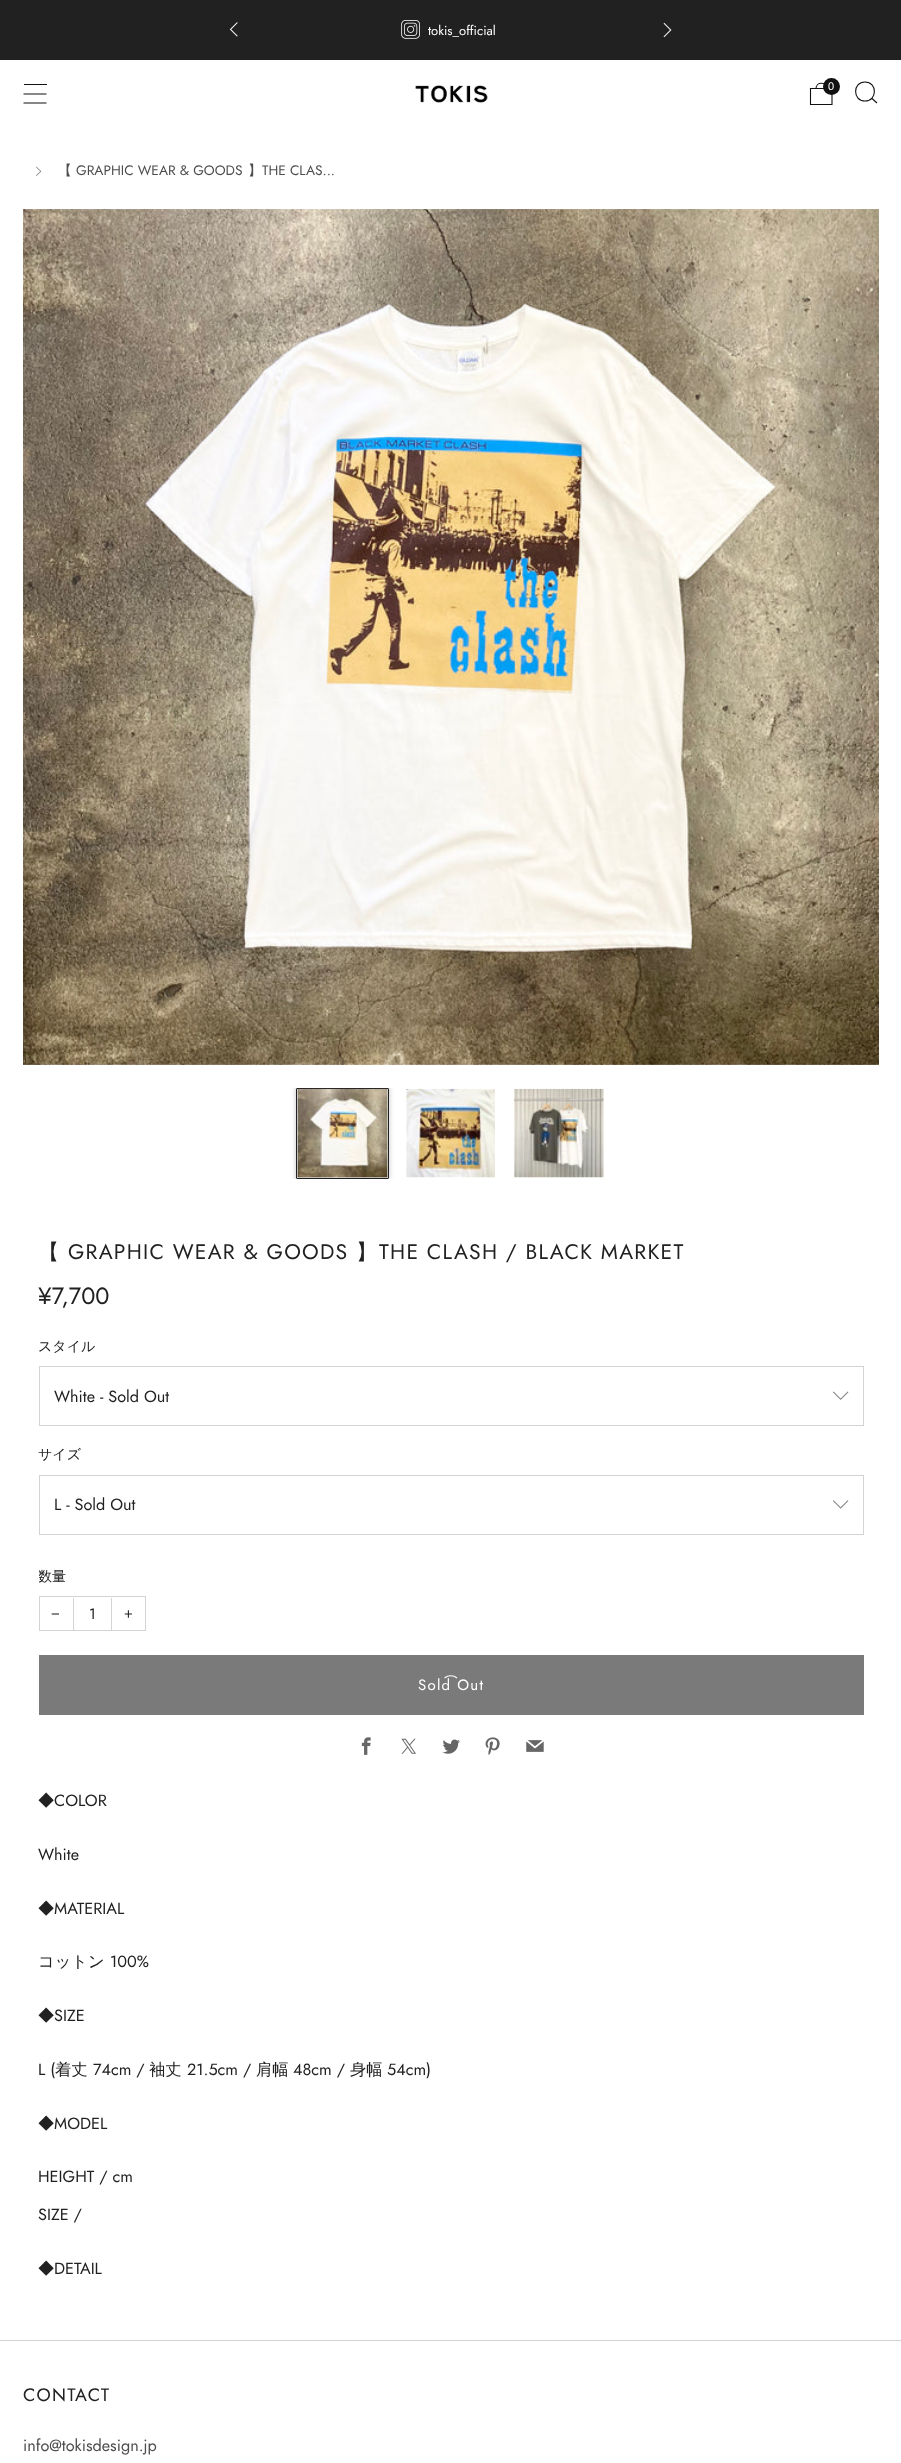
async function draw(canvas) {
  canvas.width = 901
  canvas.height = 2463
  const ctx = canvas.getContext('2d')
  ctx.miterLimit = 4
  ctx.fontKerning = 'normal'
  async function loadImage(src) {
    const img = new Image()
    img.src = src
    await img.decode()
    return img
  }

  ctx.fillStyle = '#fff'
  ctx.fillRect(0, 0, 901, 2463)
  ctx.fillStyle = '#212121'
  ctx.fillRect(0, 0, 901, 60)
  ctx.drawImage(await loadImage('image0.png'), 229, 22, 9, 15)
  ctx.drawImage(await loadImage('image1.png'), 401, 20, 19, 19)
  ctx.font = '13px Jost'
  ctx.fillStyle = '#fff'
  ctx.fillText('tokis_official', 428, 35)
  ctx.drawImage(await loadImage('image2.png'), 663, 22, 9, 16)
  ctx.fillStyle = '#111'
  ctx.fillRect(24, 84, 23, 1)
  ctx.beginPath()
  ctx.moveTo(23.5, 94)
  ctx.lineTo(46.5, 94)
  ctx.moveTo(23.5, 103)
  ctx.lineTo(46.5, 103)
  ctx.strokeStyle = '#111'
  ctx.lineWidth = 1.1
  ctx.stroke()
  ctx.drawImage(await loadImage('image3.png'), 415, 85, 73, 18)
  ctx.beginPath()
  ctx.moveTo(810.5, 88.5)
  ctx.lineTo(832, 88.5)
  ctx.lineTo(832, 104.5)
  ctx.lineTo(810.5, 104.5)
  ctx.closePath()
  ctx.moveTo(826.5, 88.5)
  ctx.bezierCurveTo(826.5, 81.5, 816, 81.5, 816, 88.5)
  ctx.stroke()
  ctx.beginPath()
  ctx.arc(831.5, 86.5, 8.5, 0, 2 * Math.PI)
  ctx.fill()
  ctx.font = '11px Liberation Sans'
  ctx.fillStyle = '#fff'
  ctx.fillText('0', 828, 90)
  ctx.beginPath()
  ctx.moveTo(865, 101)
  ctx.bezierCurveTo(877.5, 101, 877.5, 82, 865, 82)
  ctx.bezierCurveTo(852.5, 82, 852.5, 101, 865, 101)
  ctx.closePath()
  ctx.moveTo(872, 98.5)
  ctx.lineTo(877, 103)
  ctx.stroke()
  ctx.drawImage(await loadImage('image4.png'), 36, 166, 6, 10)
  ctx.font = '500 13.75px WenQuanYi Zen Hei'
  ctx.fillStyle = '#4d4d4d'
  ctx.fillText('【', 58, 175)
  ctx.font = '13.75px Jost'
  ctx.fillText('GRAPHIC WEAR & GOODS', 76, 175)
  ctx.font = '500 13.75px WenQuanYi Zen Hei'
  ctx.fillText('】', 248, 175)
  ctx.font = '13.75px Jost'
  ctx.fillText('THE CLAS...', 262, 175)
  ctx.drawImage(await loadImage('image5.png'), 23, 209, 856, 856)
  ctx.save()
  ctx.beginPath()
  ctx.rect(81, 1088, 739, 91)
  ctx.clip()
  ctx.fillStyle = '#21212133'
  ctx.filter = 'blur(2px)'
  ctx.beginPath()
  ctx.roundRect(295, 1086, 95, 94, 2.5)
  ctx.fill()
  ctx.filter = 'none'
  ctx.restore()
  ctx.beginPath()
  ctx.roundRect(296.5, 1088.5, 92, 90, 0.5)
  ctx.strokeStyle = '#212121'
  ctx.lineWidth = 1
  ctx.stroke()
  ctx.drawImage(await loadImage('image6.png'), 297, 1088, 91, 90)
  ctx.drawImage(await loadImage('image7.png'), 406, 1088, 89, 90)
  ctx.drawImage(await loadImage('image8.png'), 513, 1088, 91, 90)
  ctx.letterSpacing = '1.25px'
  ctx.font = '500 21.1px WenQuanYi Zen Hei'
  ctx.fillStyle = '#212121'
  ctx.fillText('【', 38, 1259)
  ctx.font = '21.1px Jost'
  ctx.fillText('GRAPHIC WEAR & GOODS', 68, 1259)
  ctx.font = '500 21.1px WenQuanYi Zen Hei'
  ctx.fillText('】', 356, 1259)
  ctx.font = '21.1px Jost'
  ctx.fillText('THE CLASH / BLACK MARKET', 379, 1259)
  ctx.letterSpacing = '0px'
  ctx.font = '23.5px Jost'
  ctx.fillText('¥7,700', 38, 1304)
  ctx.font = '500 14px WenQuanYi Zen Hei'
  ctx.fillText('スタイル', 38, 1351)
  ctx.strokeStyle = '#d3d3d3'
  ctx.strokeRect(39.5, 1366.5, 824, 59)
  ctx.font = '16.25px Jost'
  ctx.fillText('White - Sold Out', 54, 1402)
  ctx.drawImage(await loadImage('image9.png'), 833, 1391, 16, 9)
  ctx.font = '500 14px WenQuanYi Zen Hei'
  ctx.fillText('サイズ', 38, 1459)
  ctx.strokeRect(39.5, 1475.5, 824, 59)
  ctx.font = '16.25px Jost'
  ctx.fillText('L - Sold Out', 54, 1510)
  ctx.drawImage(await loadImage('image10.png'), 833, 1500, 16, 9)
  ctx.save()
  ctx.beginPath()
  ctx.rect(39, 1558, 825, 75)
  ctx.clip()
  ctx.font = '500 14px WenQuanYi Zen Hei'
  ctx.fillText('数量', 38, 1581)
  ctx.restore()
  ctx.strokeRect(39.5, 1596.5, 106, 34)
  ctx.font = '15px Liberation Sans'
  ctx.fillText('−', 51, 1619)
  ctx.fillStyle = '#d3d3d3'
  ctx.fillRect(111, 1598, 1, 32)
  ctx.fillRect(73, 1598, 1, 32)
  ctx.font = '15px Jost'
  ctx.fillStyle = '#212121'
  ctx.fillText('1', 89, 1619)
  ctx.font = '15px Liberation Sans'
  ctx.fillText('+', 124, 1619)
  ctx.fillStyle = '#7a7a7a'
  ctx.fillRect(39, 1655, 825, 60)
  ctx.beginPath()
  ctx.moveTo(444.5, 1678)
  ctx.bezierCurveTo(448, 1675, 453.5, 1675, 457, 1678)
  ctx.moveTo(444.5, 1678)
  ctx.bezierCurveTo(448, 1675, 453.5, 1675, 457, 1678)
  ctx.moveTo(444.5, 1678)
  ctx.bezierCurveTo(448, 1675, 453.5, 1675, 457, 1678)
  ctx.moveTo(444.5, 1678)
  ctx.bezierCurveTo(448, 1675, 453.5, 1675, 457, 1678)
  ctx.strokeStyle = '#fff'
  ctx.lineWidth = 1.2
  ctx.stroke()
  ctx.letterSpacing = '1.25px'
  ctx.font = '15px Jost'
  ctx.fillStyle = '#fff'
  ctx.fillText('Sold Out', 418, 1690)
  ctx.drawImage(await loadImage('image11.png'), 361, 1737, 10, 18)
  ctx.drawImage(await loadImage('image12.png'), 401, 1738, 15, 16)
  ctx.drawImage(await loadImage('image13.png'), 442, 1739, 18, 15)
  ctx.drawImage(await loadImage('image14.png'), 485, 1737, 15, 18)
  ctx.drawImage(await loadImage('image15.png'), 526, 1740, 18, 12)
  ctx.letterSpacing = '0px'
  ctx.font = '500 16.25px WenQuanYi Zen Hei'
  ctx.fillStyle = '#212121'
  ctx.fillText('◆', 38, 1806)
  ctx.font = '16.25px Jost'
  ctx.fillText('COLOR', 54, 1806)
  ctx.fillText('White', 38, 1860)
  ctx.font = '500 16.25px WenQuanYi Zen Hei'
  ctx.fillText('◆', 38, 1914)
  ctx.font = '16.25px Jost'
  ctx.fillText('MATERIAL', 54, 1914)
  ctx.font = '500 16.25px WenQuanYi Zen Hei'
  ctx.fillText('コットン', 38, 1967)
  ctx.font = '16.25px Jost'
  ctx.fillText('100%', 110, 1967)
  ctx.font = '500 16.25px WenQuanYi Zen Hei'
  ctx.fillText('◆', 38, 2021)
  ctx.font = '16.25px Jost'
  ctx.fillText('SIZE', 54, 2021)
  ctx.fillText('L (', 38, 2075)
  ctx.font = '500 16.25px WenQuanYi Zen Hei'
  ctx.fillText('着丈', 55, 2075)
  ctx.font = '16.25px Jost'
  ctx.fillText('74cm /', 93, 2075)
  ctx.font = '500 16.25px WenQuanYi Zen Hei'
  ctx.fillText('袖丈', 149, 2075)
  ctx.font = '16.25px Jost'
  ctx.fillText('21.5cm /', 187, 2075)
  ctx.font = '500 16.25px WenQuanYi Zen Hei'
  ctx.fillText('肩幅', 256, 2075)
  ctx.font = '16.25px Jost'
  ctx.fillText('48cm /', 293, 2075)
  ctx.font = '500 16.25px WenQuanYi Zen Hei'
  ctx.fillText('身幅', 350, 2075)
  ctx.font = '16.25px Jost'
  ctx.fillText('54cm)', 387, 2075)
  ctx.font = '500 16.25px WenQuanYi Zen Hei'
  ctx.fillText('◆', 38, 2129)
  ctx.font = '16.25px Jost'
  ctx.fillText('MODEL', 54, 2129)
  ctx.fillText('HEIGHT / cm', 38, 2182)
  ctx.fillText('SIZE /', 38, 2220)
  ctx.font = '500 16.25px WenQuanYi Zen Hei'
  ctx.fillText('◆', 38, 2274)
  ctx.font = '16.25px Jost'
  ctx.fillText('DETAIL', 54, 2274)
  ctx.fillStyle = '#d3d3d3'
  ctx.fillRect(0, 2340, 901, 1)
  ctx.letterSpacing = '1.25px'
  ctx.font = '18px Jost'
  ctx.fillStyle = '#212121'
  ctx.fillText('CONTACT', 23, 2401)
  ctx.letterSpacing = '0px'
  ctx.font = '16.25px Jost'
  ctx.fillStyle = '#4d4d4d'
  ctx.fillText('info@tokisdesign.jp', 23, 2451)
}

draw(document.querySelector('canvas'))
